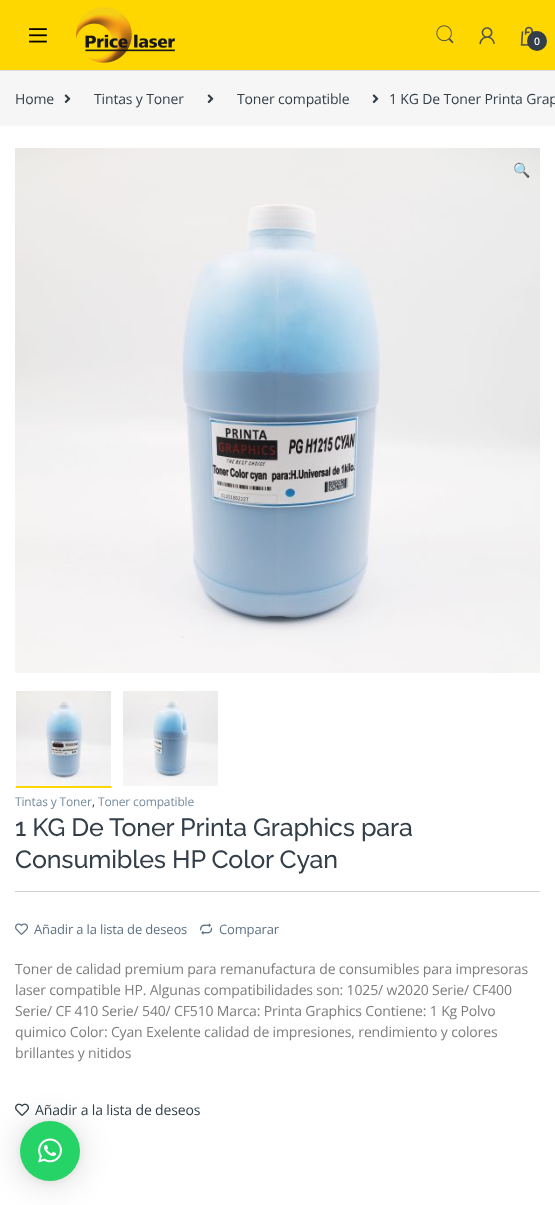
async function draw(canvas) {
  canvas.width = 555
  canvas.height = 1205
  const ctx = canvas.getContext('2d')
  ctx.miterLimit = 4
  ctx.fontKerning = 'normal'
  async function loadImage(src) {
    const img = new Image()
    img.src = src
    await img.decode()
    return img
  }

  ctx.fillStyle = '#fff'
  ctx.fillRect(0, 0, 555, 1205)
  ctx.fillStyle = '#ddd'
  ctx.fillRect(0, 70, 555, 1)
  ctx.fillStyle = '#fed700'
  ctx.fillRect(0, 0, 555, 70)
  ctx.drawImage(await loadImage('image0.png'), 29, 28, 18, 15)
  ctx.drawImage(await loadImage('image1.png'), 76, 7, 99, 56)
  ctx.drawImage(await loadImage('image2.png'), 436, 25, 18, 19)
  ctx.drawImage(await loadImage('image3.png'), 479, 27, 16, 18)
  ctx.drawImage(await loadImage('image4.png'), 520, 26, 16, 20)
  ctx.fillStyle = '#333e48'
  ctx.beginPath()
  ctx.arc(537, 41, 10, 0, 2 * Math.PI)
  ctx.fill()
  ctx.letterSpacing = '-0.15px'
  ctx.font = 'bold 10px Open Sans'
  ctx.fillStyle = '#fff'
  ctx.fillText('0', 534, 45)
  ctx.fillStyle = '#f7f6f6'
  ctx.fillRect(0, 71, 555, 55)
  ctx.font = '14px Open Sans'
  ctx.fillStyle = '#333e48'
  ctx.fillText('Home', 15, 104)
  ctx.drawImage(await loadImage('image5.png'), 64, 94, 7, 10)
  ctx.fillText('Tintas y Toner', 94, 104)
  ctx.drawImage(await loadImage('image5.png'), 207, 94, 7, 10)
  ctx.fillText('Toner compatible', 237, 104)
  ctx.drawImage(await loadImage('image5.png'), 372, 94, 7, 10)
  ctx.fillText('1 KG De Toner Printa Grap', 389, 104)
  ctx.drawImage(await loadImage('image6.png'), 15, 148, 525, 525)
  ctx.font = '14px Noto Color Emoji'
  ctx.fillText('🔍', 513, 175)
  ctx.fillStyle = '#fed700'
  ctx.beginPath()
  ctx.moveTo(112, 788)
  ctx.lineTo(15, 788)
  ctx.lineTo(16, 786)
  ctx.lineTo(111, 786)
  ctx.closePath()
  ctx.fill()
  ctx.fillStyle = '#fff'
  ctx.beginPath()
  ctx.moveTo(15, 788)
  ctx.lineTo(15, 690)
  ctx.lineTo(16, 691)
  ctx.lineTo(16, 786)
  ctx.closePath()
  ctx.fill()
  ctx.drawImage(await loadImage('image7.png'), 16, 691, 95, 95)
  ctx.drawImage(await loadImage('image8.png'), 123, 691, 95, 95)
  ctx.font = '12px Open Sans'
  ctx.fillStyle = '#768b9e'
  ctx.fillText('Tintas y Toner', 15, 806)
  ctx.fillStyle = '#333e48'
  ctx.fillText(',', 92, 806)
  ctx.fillStyle = '#768b9e'
  ctx.fillText('Toner compatible', 98, 806)
  ctx.font = '100 25px Raleway'
  ctx.fillStyle = '#333e48'
  ctx.fillText('1 KG De Toner Printa Graphics para', 15, 836)
  ctx.fillText('Consumibles HP Color Cyan', 15, 868)
  ctx.fillStyle = '#cccfd1'
  ctx.fillRect(15, 891, 525, 1)
  ctx.drawImage(await loadImage('image9.png'), 15, 923, 13, 12)
  ctx.font = '13px Open Sans'
  ctx.fillStyle = '#5d7184'
  ctx.fillText('Añadir a la lista de deseos', 34, 934)
  ctx.drawImage(await loadImage('image10.png'), 200, 923, 13, 12)
  ctx.fillText('Comparar', 219, 934)
  ctx.font = '14px Open Sans'
  ctx.fillStyle = '#7d7d7d'
  ctx.fillText('Toner de calidad premium para remanufactura de consumibles para impresoras', 15, 974)
  ctx.fillText('laser compatible HP. Algunas compatibilidades son: 1025/ w2020 Serie/ CF400', 15, 995)
  ctx.fillText('Serie/ CF 410 Serie/ 540/ CF510 Marca: Printa Graphics Contiene: 1 Kg Polvo', 15, 1016)
  ctx.fillText('quimico Color: Cyan Exelente calidad de impresiones, rendimiento y colores', 15, 1037)
  ctx.fillText('brillantes y nitidos', 15, 1058)
  ctx.drawImage(await loadImage('image11.png'), 15, 1103, 14, 13)
  ctx.fillStyle = '#333e48'
  ctx.fillText('Añadir a la lista de deseos', 35, 1115)
  ctx.fillStyle = '#00000029'
  ctx.filter = 'blur(16px)'
  ctx.beginPath()
  ctx.roundRect(20, 1123, 60, 60, 30)
  ctx.fill()
  ctx.filter = 'none'
  ctx.fillStyle = '#0000000f'
  ctx.filter = 'blur(3px)'
  ctx.beginPath()
  ctx.roundRect(20, 1122, 60, 60, 30)
  ctx.fill()
  ctx.filter = 'none'
  ctx.fillStyle = '#25d366'
  ctx.beginPath()
  ctx.arc(50, 1151, 30, 0, 2 * Math.PI)
  ctx.fill()
  ctx.drawImage(await loadImage('image12.png'), 38, 1138, 24, 25)
}

draw(document.querySelector('canvas'))
